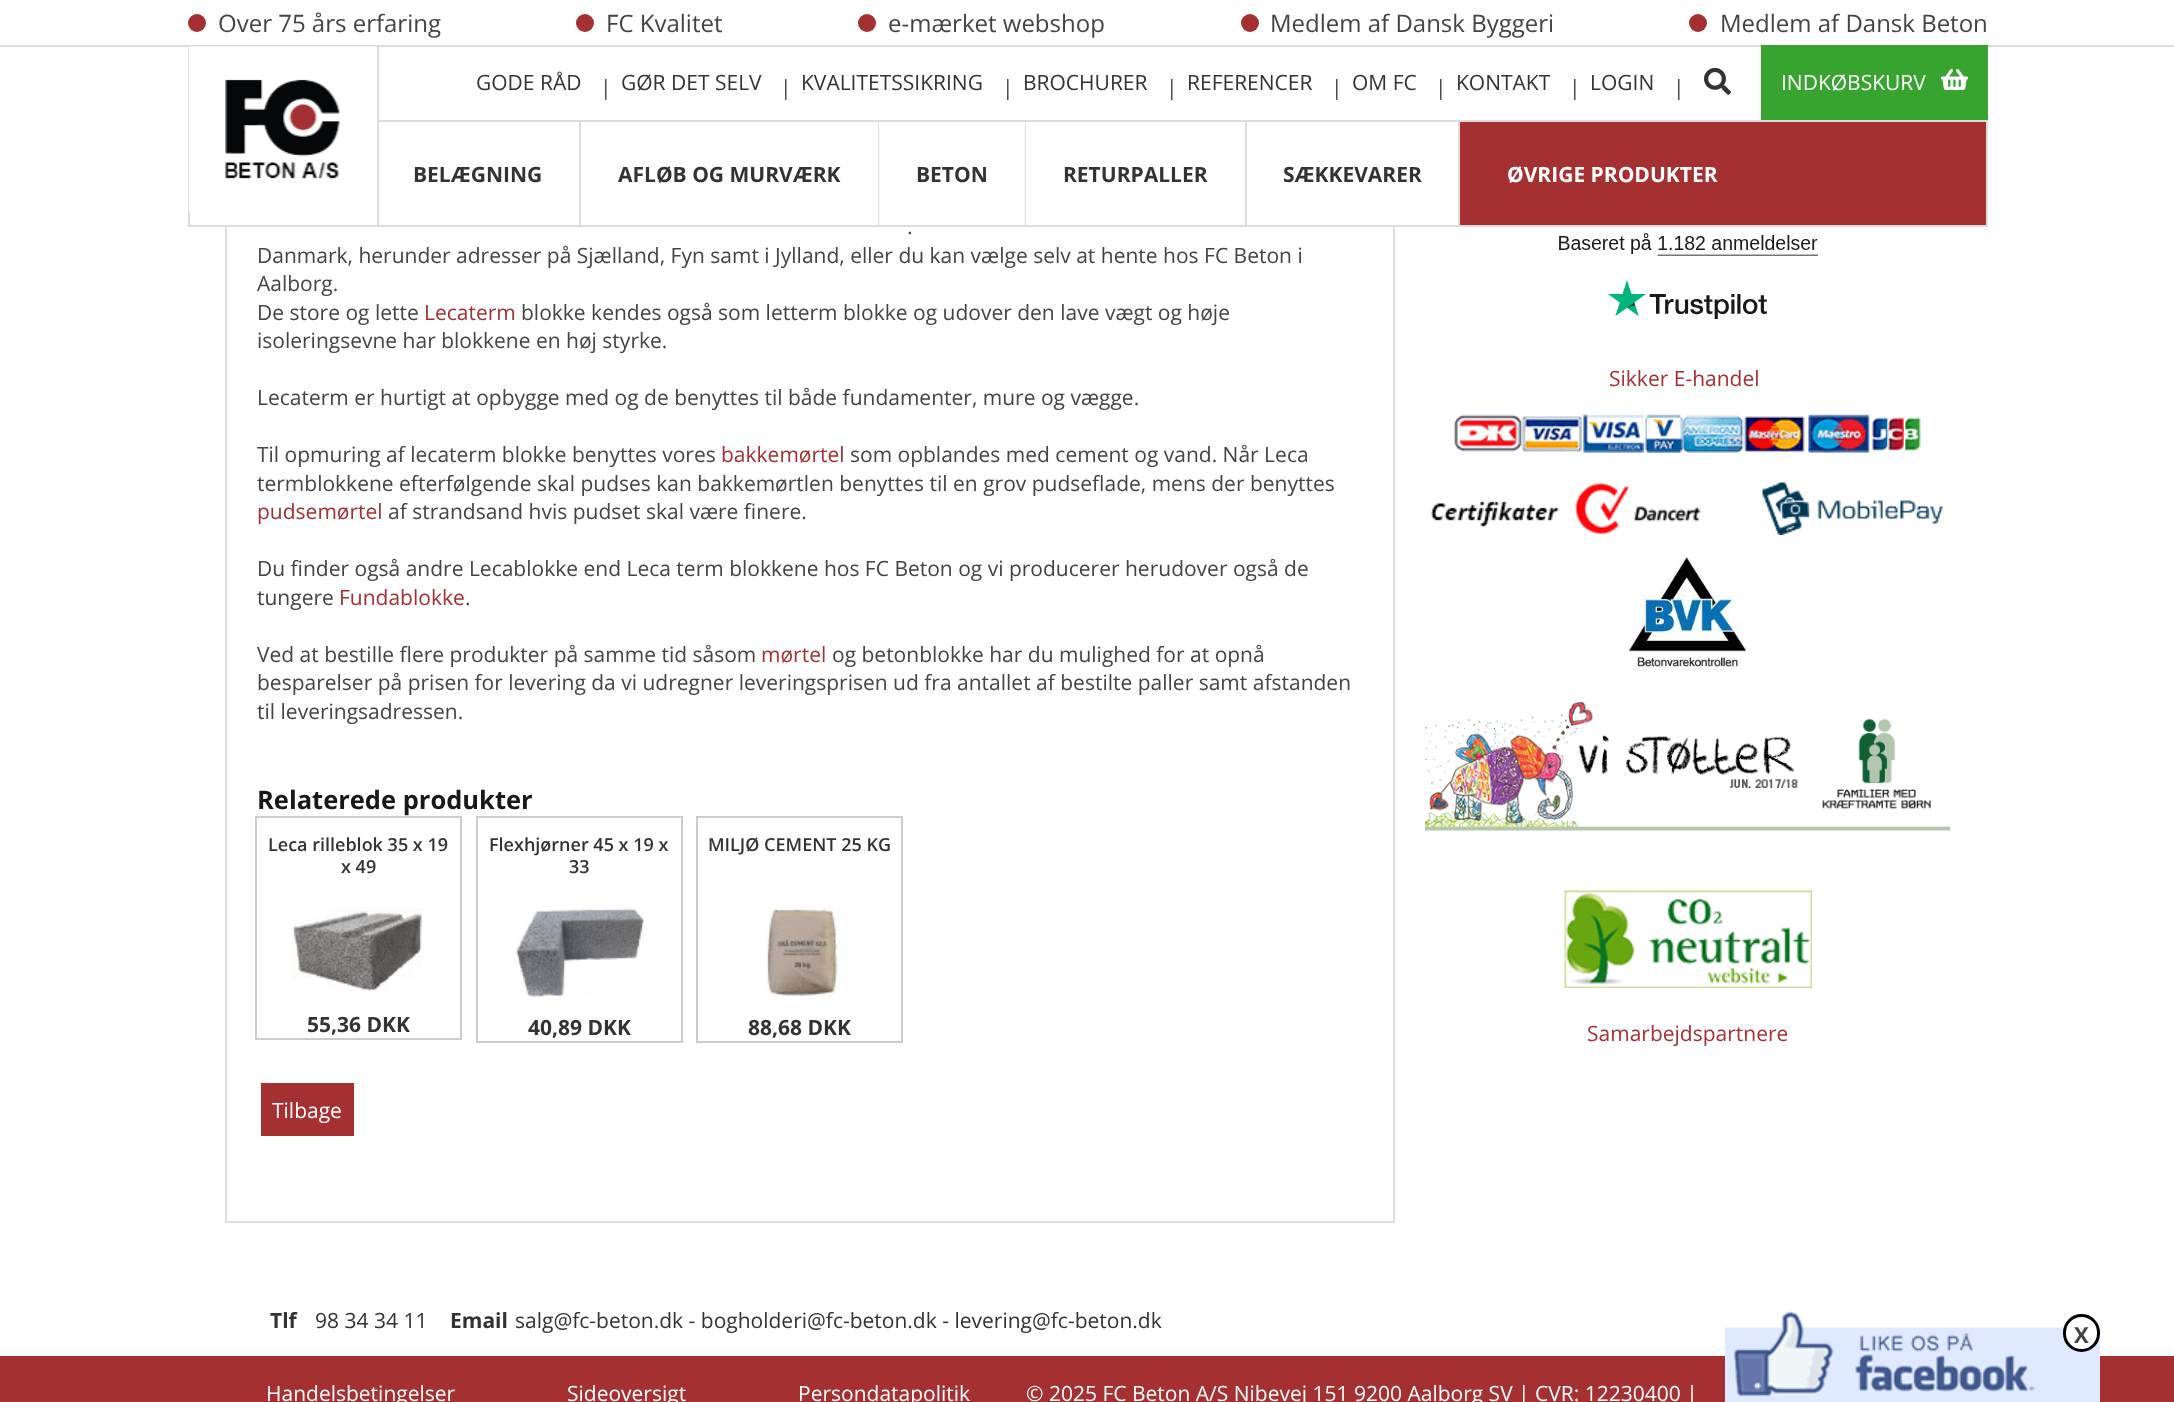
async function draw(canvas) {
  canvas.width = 2174
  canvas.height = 1402
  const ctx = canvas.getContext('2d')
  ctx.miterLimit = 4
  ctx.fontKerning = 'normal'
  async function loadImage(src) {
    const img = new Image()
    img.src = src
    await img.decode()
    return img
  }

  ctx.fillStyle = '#fff'
  ctx.fillRect(0, 0, 2174, 1402)
  ctx.strokeStyle = '#ddd'
  ctx.lineWidth = 2
  ctx.strokeRect(226, -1, 1168, 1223)
  ctx.fillRect(225, 0, 1170, 227)
  ctx.fillStyle = '#ddd'
  ctx.fillRect(0, 45, 2174, 2)
  ctx.fillStyle = '#a43032'
  ctx.beginPath()
  ctx.arc(197, 23, 9, 0, 2 * Math.PI)
  ctx.fill()
  ctx.font = '24px Open Sans'
  ctx.fillStyle = '#444'
  ctx.fillText('Over 75 års erfaring', 218, 32)
  ctx.fillStyle = '#a43032'
  ctx.beginPath()
  ctx.arc(585, 23, 9, 0, 2 * Math.PI)
  ctx.fill()
  ctx.fillStyle = '#444'
  ctx.fillText('FC Kvalitet', 606, 32)
  ctx.fillStyle = '#a43032'
  ctx.beginPath()
  ctx.arc(867, 23, 9, 0, 2 * Math.PI)
  ctx.fill()
  ctx.fillStyle = '#444'
  ctx.fillText('e-mærket webshop', 888, 32)
  ctx.fillStyle = '#a43032'
  ctx.beginPath()
  ctx.arc(1250, 23, 9, 0, 2 * Math.PI)
  ctx.fill()
  ctx.fillStyle = '#444'
  ctx.fillText('Medlem af Dansk Byggeri', 1270, 32)
  ctx.fillStyle = '#a43032'
  ctx.beginPath()
  ctx.arc(1698, 23, 9, 0, 2 * Math.PI)
  ctx.fill()
  ctx.fillStyle = '#444'
  ctx.fillText('Medlem af Dansk Beton', 1720, 32)
  ctx.fillStyle = '#ddd'
  ctx.fillRect(377, 120, 1611, 2)
  ctx.fillRect(1986, 120, 2, 107)
  ctx.fillRect(377, 225, 1611, 2)
  ctx.fillRect(377, 47, 2, 180)
  ctx.fillRect(188, 225, 190, 2)
  ctx.fillRect(188, 47, 2, 180)
  ctx.drawImage(await loadImage('image0.png'), 189, 46, 188, 166)
  ctx.font = '21px Open Sans'
  ctx.fillStyle = '#333'
  ctx.fillText('GODE RÅD', 476, 90)
  ctx.fillStyle = '#444'
  ctx.fillText('|', 600, 95)
  ctx.fillStyle = '#333'
  ctx.fillText('GØR DET SELV', 621, 90)
  ctx.fillStyle = '#444'
  ctx.fillText('|', 780, 95)
  ctx.fillStyle = '#333'
  ctx.fillText('KVALITETSSIKRING', 801, 90)
  ctx.fillStyle = '#444'
  ctx.fillText('|', 1002, 95)
  ctx.fillStyle = '#333'
  ctx.fillText('BROCHURER', 1023, 90)
  ctx.fillStyle = '#444'
  ctx.fillText('|', 1166, 95)
  ctx.fillStyle = '#333'
  ctx.fillText('REFERENCER', 1187, 90)
  ctx.fillStyle = '#444'
  ctx.fillText('|', 1331, 95)
  ctx.fillStyle = '#333'
  ctx.fillText('OM FC', 1352, 90)
  ctx.fillStyle = '#444'
  ctx.fillText('|', 1435, 95)
  ctx.fillStyle = '#333'
  ctx.fillText('KONTAKT', 1456, 90)
  ctx.fillStyle = '#444'
  ctx.fillText('|', 1569, 95)
  ctx.fillStyle = '#333'
  ctx.fillText('LOGIN', 1590, 90)
  ctx.fillStyle = '#444'
  ctx.fillText('|', 1673, 95)
  ctx.drawImage(await loadImage('image1.png'), 1704, 67, 27, 28)
  ctx.fillStyle = '#38a430'
  ctx.fillRect(1761, 45, 227, 75)
  ctx.fillStyle = '#fff'
  ctx.fillText('INDKØBSKURV', 1781, 90)
  ctx.drawImage(await loadImage('image2.png'), 1941, 69, 27, 21)
  ctx.fillStyle = '#a43032'
  ctx.fillRect(1460, 122, 526, 103)
  ctx.fillStyle = '#ddd'
  ctx.fillRect(579, 122, 2, 103)
  ctx.font = 'bold 21px Open Sans'
  ctx.fillStyle = '#333'
  ctx.fillText('BELÆGNING', 413, 182)
  ctx.fillStyle = '#ddd'
  ctx.fillRect(878, 122, 1, 103)
  ctx.fillStyle = '#333'
  ctx.fillText('AFLØB OG MURVÆRK', 618, 182)
  ctx.fillStyle = '#ddd'
  ctx.fillRect(1025, 122, 1, 103)
  ctx.fillStyle = '#333'
  ctx.fillText('BETON', 916, 182)
  ctx.fillStyle = '#ddd'
  ctx.fillRect(1245, 122, 2, 103)
  ctx.fillStyle = '#333'
  ctx.fillText('RETURPALLER', 1063, 182)
  ctx.fillStyle = '#ddd'
  ctx.fillRect(1458, 122, 2, 103)
  ctx.fillStyle = '#333'
  ctx.fillText('SÆKKEVARER', 1283, 182)
  ctx.fillStyle = '#fff'
  ctx.fillText('ØVRIGE PRODUKTER', 1507, 182)
  ctx.font = '21px Open Sans'
  ctx.fillStyle = '#444'
  ctx.fillText('.', 907, 234)
  ctx.fillText('Danmark, herunder adresser på Sjælland, Fyn samt i Jylland, eller du kan vælge selv at hente hos FC Beton i', 257, 263)
  ctx.fillText('Aalborg.', 257, 291)
  ctx.fillText('De store og lette', 257, 320)
  ctx.fillStyle = '#a43032'
  ctx.fillText('Lecaterm', 424, 320)
  ctx.fillStyle = '#444'
  ctx.fillText('blokke kendes også som letterm blokke og udover den lave vægt og høje', 521, 320)
  ctx.fillText('isoleringsevne har blokkene en høj styrke.', 257, 348)
  ctx.fillText('Lecaterm er hurtigt at opbygge med og de benyttes til både fundamenter, mure og vægge.', 257, 405)
  ctx.fillText('Til opmuring af lecaterm blokke benyttes vores', 257, 462)
  ctx.fillStyle = '#a43032'
  ctx.fillText('bakkemørtel', 721, 462)
  ctx.fillStyle = '#444'
  ctx.fillText('som opblandes med cement og vand. Når Leca', 850, 462)
  ctx.fillText('termblokkene efterfølgende skal pudses kan bakkemørtlen benyttes til en grov pudseflade, mens der benyttes', 257, 491)
  ctx.fillStyle = '#a43032'
  ctx.fillText('pudsemørtel', 257, 519)
  ctx.fillStyle = '#444'
  ctx.fillText('af strandsand hvis pudset skal være finere.', 388, 519)
  ctx.fillText('Du finder også andre Lecablokke end Leca term blokkene hos FC Beton og vi producerer herudover også de', 257, 576)
  ctx.fillText('tungere', 257, 605)
  ctx.fillStyle = '#a43032'
  ctx.fillText('Fundablokke', 339, 605)
  ctx.fillStyle = '#444'
  ctx.fillText('.', 465, 605)
  ctx.fillText('Ved at bestille flere produkter på samme tid såsom', 257, 662)
  ctx.fillStyle = '#a43032'
  ctx.fillText('mørtel', 761, 662)
  ctx.fillStyle = '#444'
  ctx.fillText('og betonblokke har du mulighed for at opnå', 832, 662)
  ctx.fillText('besparelser på prisen for levering da vi udregner leveringsprisen ud fra antallet af bestilte paller samt afstanden', 257, 690)
  ctx.fillText('til leveringsadressen.', 257, 719)
  ctx.font = 'bold 25.5px Open Sans'
  ctx.fillStyle = '#181818'
  ctx.fillText('Relaterede produkter', 257, 809)
  ctx.strokeStyle = '#ccc'
  ctx.strokeRect(256, 817, 205, 222)
  ctx.font = '600 18px Open Sans'
  ctx.fillStyle = '#333'
  ctx.fillText('Leca rilleblok 35 x 19', 268, 851)
  ctx.fillText('x 49', 341, 873)
  ctx.drawImage(await loadImage('image3.png'), 291, 907, 132, 85)
  ctx.font = 'bold 21px Open Sans'
  ctx.fillText('55,36 DKK', 307, 1032)
  ctx.strokeRect(477, 817, 205, 225)
  ctx.font = '600 18px Open Sans'
  ctx.fillText('Flexhjørner 45 x 19 x', 489, 851)
  ctx.fillText('33', 569, 873)
  ctx.drawImage(await loadImage('image4.png'), 515, 908, 129, 89)
  ctx.font = 'bold 21px Open Sans'
  ctx.fillText('40,89 DKK', 528, 1035)
  ctx.strokeRect(697, 817, 205, 225)
  ctx.font = '600 18px Open Sans'
  ctx.fillText('MILJØ CEMENT 25 KG', 708, 851)
  ctx.drawImage(await loadImage('image5.png'), 765, 907, 82, 90)
  ctx.font = 'bold 21px Open Sans'
  ctx.fillText('88,68 DKK', 748, 1035)
  ctx.fillStyle = '#a43032'
  ctx.fillRect(261, 1083, 93, 53)
  ctx.font = '21px Open Sans'
  ctx.fillStyle = '#fff'
  ctx.fillText('Tilbage', 272, 1118)
  ctx.drawImage(await loadImage('image6.png'), 1559, 233, 259, 86)
  ctx.fillStyle = '#a43032'
  ctx.fillText('Sikker E-handel', 1609, 386)
  ctx.drawImage(await loadImage('image7.png'), 1453, 414, 468, 40)
  ctx.drawImage(await loadImage('image8.png'), 1430, 482, 272, 53)
  ctx.drawImage(await loadImage('image9.png'), 1762, 482, 181, 53)
  ctx.drawImage(await loadImage('image10.png'), 1629, 557, 117, 113)
  ctx.drawImage(await loadImage('image11.png'), 1425, 702, 525, 129)
  ctx.drawImage(await loadImage('image12.png'), 1564, 890, 248, 98)
  ctx.fillText('Samarbejdspartnere', 1587, 1041)
  ctx.font = 'bold 21px Open Sans'
  ctx.fillStyle = '#333'
  ctx.fillText('Tlf', 270, 1328)
  ctx.font = '21px Open Sans'
  ctx.fillText('98 34 34 11', 315, 1328)
  ctx.font = 'bold 21px Open Sans'
  ctx.fillText('Email', 450, 1328)
  ctx.font = '21px Open Sans'
  ctx.fillText('salg@fc-beton.dk - bogholderi@fc-beton.dk - levering@fc-beton.dk', 515, 1328)
  ctx.fillStyle = '#a43032'
  ctx.fillRect(0, 1356, 2174, 46)
  ctx.fillStyle = '#fff'
  ctx.fillText('Handelsbetingelser', 266, 1401)
  ctx.fillText('Sideoversigt', 567, 1401)
  ctx.fillText('Persondatapolitik', 798, 1401)
  ctx.fillText('© 2025 FC Beton A/S Nibevej 151 9200 Aalborg SV | CVR: 12230400 |', 1026, 1401)
  ctx.drawImage(await loadImage('image13.png'), 1725, 1311, 375, 90)
  ctx.beginPath()
  ctx.roundRect(2064.5, 1315.5, 34, 35, 17)
  ctx.fill()
  ctx.strokeStyle = '#000'
  ctx.lineWidth = 3
  ctx.stroke()
  ctx.font = 'bold 22px Open Sans'
  ctx.fillStyle = '#444'
  ctx.fillText('X', 2074, 1343)
  ctx.fillStyle = '#dfe9ff'
  ctx.fillRect(1725, 1401, 375, 1)
}

draw(document.querySelector('canvas'))
